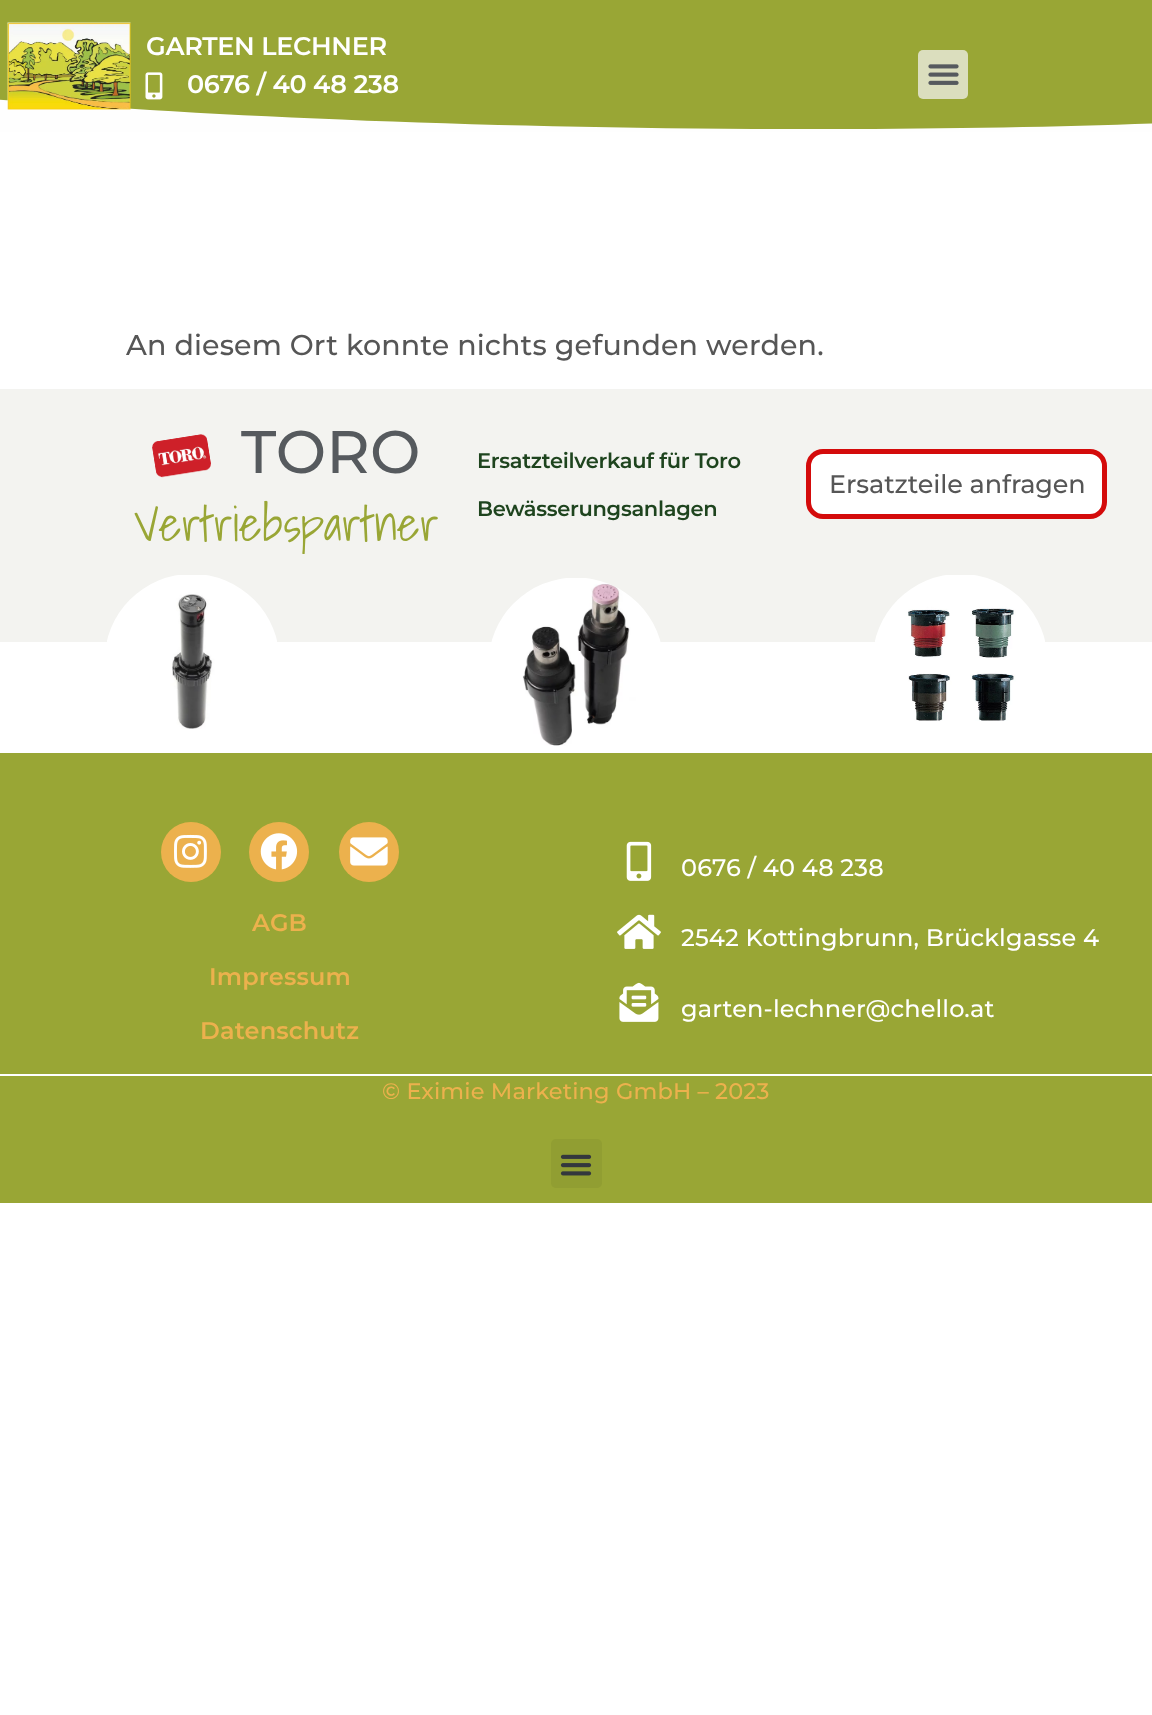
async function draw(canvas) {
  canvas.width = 1152
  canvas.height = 1715
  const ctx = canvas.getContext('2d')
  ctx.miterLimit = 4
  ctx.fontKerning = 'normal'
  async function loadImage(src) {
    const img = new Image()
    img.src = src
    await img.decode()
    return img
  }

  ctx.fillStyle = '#fff'
  ctx.fillRect(0, 0, 1152, 1715)
  ctx.fillStyle = '#99a635'
  ctx.fillRect(0, 0, 1152, 129)
  ctx.fillStyle = '#fefefe'
  ctx.beginPath()
  ctx.moveTo(828, 129)
  ctx.bezierCurveTo(7, 130, -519, 48, -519, 28)
  ctx.lineTo(-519, 132)
  ctx.lineTo(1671, 132)
  ctx.lineTo(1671, 28)
  ctx.bezierCurveTo(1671, 48, 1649, 128, 828, 129)
  ctx.closePath()
  ctx.fill()
  ctx.drawImage(await loadImage('image0.png'), 7, 22, 124, 88)
  ctx.letterSpacing = '-0.3px'
  ctx.font = '600 25.5px Montserrat'
  ctx.fillStyle = '#fff'
  ctx.fillText('GARTEN LECHNER', 146, 55)
  ctx.drawImage(await loadImage('image1.png'), 145, 72, 18, 28)
  ctx.fillText('0676 / 40 48 238', 187, 93)
  ctx.fillStyle = '#dbdebe'
  ctx.beginPath()
  ctx.roundRect(918, 50, 50, 49, 5)
  ctx.fill()
  ctx.drawImage(await loadImage('image2.png'), 928, 64, 31, 21)
  ctx.letterSpacing = '0.15px'
  ctx.font = '500 28.5px Montserrat'
  ctx.fillStyle = '#565656'
  ctx.fillText('An diesem Ort konnte nichts gefunden werden.', 126, 355)
  ctx.fillStyle = '#f3f3f0'
  ctx.fillRect(0, 389, 1152, 253)
  ctx.font = '500 60px Montserrat'
  ctx.fillStyle = '#565a5e'
  ctx.fillText('TORO', 241, 473)
  ctx.font = '300 48px Shadows Into Light'
  ctx.fillStyle = '#99a635'
  ctx.fillText('Vertriebspartner', 134, 541)
  ctx.drawImage(await loadImage('image3.png'), 152, 434, 59, 44)
  ctx.letterSpacing = '-0.3px'
  ctx.font = '600 21px Montserrat'
  ctx.fillStyle = '#1e441e'
  ctx.fillText('Ersatzteilverkauf für Toro', 477, 468)
  ctx.fillText('Bewässerungsanlagen', 477, 516)
  ctx.fillStyle = '#fff'
  ctx.beginPath()
  ctx.roundRect(808.5, 451.5, 296, 65, 14.5)
  ctx.fill()
  ctx.strokeStyle = '#d40b0b'
  ctx.lineWidth = 5
  ctx.stroke()
  ctx.letterSpacing = '-0.1px'
  ctx.font = '500 25.5px Montserrat'
  ctx.fillStyle = '#565656'
  ctx.fillText('Ersatzteile anfragen', 829, 493)
  ctx.drawImage(await loadImage('image4.png'), 107, 575, 170, 154)
  ctx.drawImage(await loadImage('image5.png'), 491, 578, 170, 168)
  ctx.drawImage(await loadImage('image6.png'), 875, 575, 170, 146)
  ctx.fillStyle = '#99a635'
  ctx.fillRect(0, 753, 1152, 321)
  ctx.fillStyle = '#ecb14d'
  ctx.beginPath()
  ctx.arc(191, 852, 30, 0, 2 * Math.PI)
  ctx.fill()
  ctx.drawImage(await loadImage('image7.png'), 174, 834, 33, 34)
  ctx.beginPath()
  ctx.arc(279, 852, 30, 0, 2 * Math.PI)
  ctx.fill()
  ctx.drawImage(await loadImage('image8.png'), 260, 833, 38, 37)
  ctx.beginPath()
  ctx.arc(369, 852, 30, 0, 2 * Math.PI)
  ctx.fill()
  ctx.drawImage(await loadImage('image9.png'), 350, 837, 38, 29)
  ctx.letterSpacing = '0.15px'
  ctx.font = '600 24px Montserrat'
  ctx.fillText('AGB', 252, 931)
  ctx.fillText('Impressum', 209, 985)
  ctx.fillText('Datenschutz', 200, 1039)
  ctx.drawImage(await loadImage('image10.png'), 626, 841, 26, 40)
  ctx.font = '500 24px Montserrat'
  ctx.fillStyle = '#fff'
  ctx.fillText('0676 / 40 48 238', 681, 876)
  ctx.drawImage(await loadImage('image11.png'), 617, 914, 44, 35)
  ctx.fillText('2542 Kottingbrunn, Brücklgasse 4', 681, 946)
  ctx.drawImage(await loadImage('image12.png'), 619, 982, 40, 40)
  ctx.fillText('garten-lechner@chello.at', 681, 1017)
  ctx.fillStyle = '#99a635'
  ctx.fillRect(0, 1076, 1152, 127)
  ctx.font = '500 22.5px Montserrat'
  ctx.fillStyle = '#ecb14d'
  ctx.fillText('© Eximie Marketing GmbH – 2023', 382, 1099)
  ctx.fillStyle = '#919e32'
  ctx.beginPath()
  ctx.roundRect(551, 1139, 51, 49, 5)
  ctx.fill()
  ctx.drawImage(await loadImage('image13.png'), 560, 1154, 32, 22)
}

draw(document.querySelector('canvas'))
